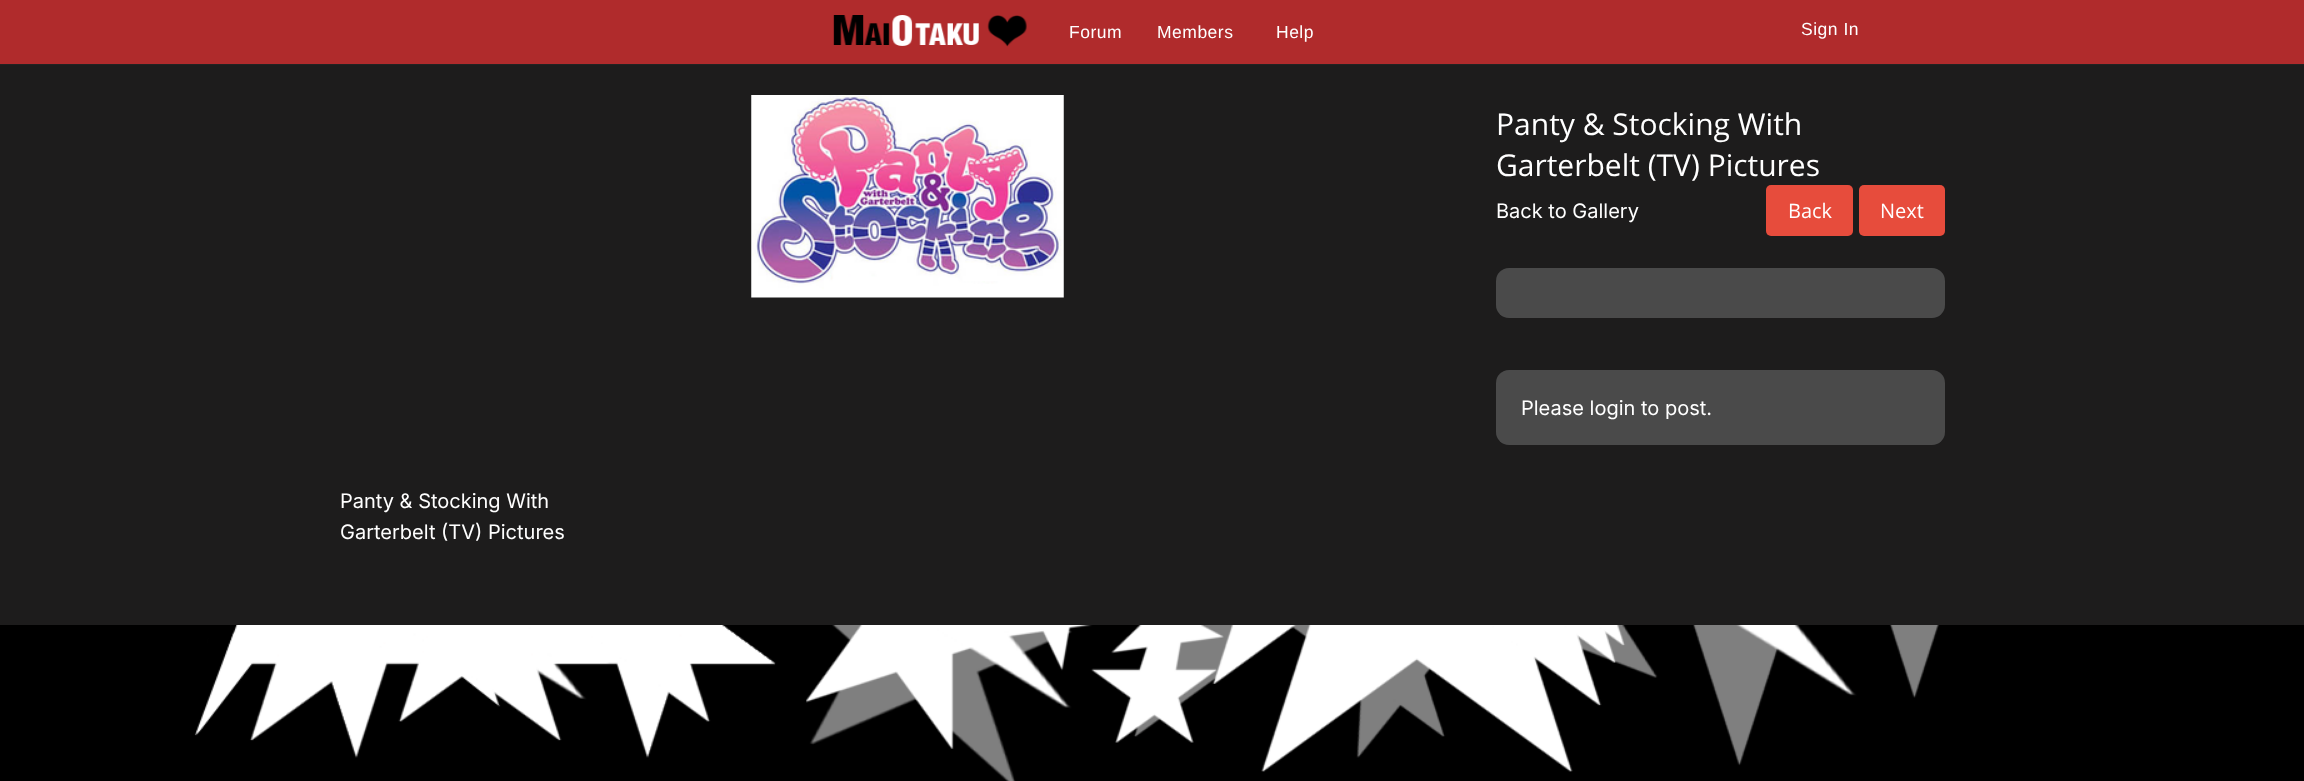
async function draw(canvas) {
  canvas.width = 2304
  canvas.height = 781
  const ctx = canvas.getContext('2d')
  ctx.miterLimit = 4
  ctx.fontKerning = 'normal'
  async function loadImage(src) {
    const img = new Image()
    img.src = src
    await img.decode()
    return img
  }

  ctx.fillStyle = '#000'
  ctx.fillRect(0, 0, 2304, 781)
  ctx.fillStyle = '#b02b2c'
  ctx.fillRect(0, 0, 2304, 64)
  ctx.fillStyle = '#222'
  ctx.fillRect(0, 64, 2304, 1)
  ctx.drawImage(await loadImage('image0.png'), 833, 15, 194, 32)
  ctx.letterSpacing = '0.5px'
  ctx.font = '17.5px Liberation Sans'
  ctx.fillStyle = '#fff'
  ctx.fillText('Forum', 1069, 38)
  ctx.fillText('Members', 1157, 38)
  ctx.fillText('Help', 1276, 38)
  ctx.fillText('Sign In', 1801, 35)
  ctx.fillStyle = '#1d1c1c'
  ctx.fillRect(0, 65, 2304, 560)
  ctx.drawImage(await loadImage('image1.png'), 751, 95, 313, 203)
  ctx.letterSpacing = '0px'
  ctx.font = '30px Open Sans'
  ctx.fillStyle = '#fff'
  ctx.fillText('Panty & Stocking With', 1496, 135)
  ctx.fillText('Garterbelt (TV) Pictures', 1496, 176)
  ctx.font = '20px Inter'
  ctx.fillText('Back to Gallery', 1496, 218)
  ctx.fillStyle = '#e74c3c'
  ctx.beginPath()
  ctx.roundRect(1766, 185, 87, 51, 5)
  ctx.fill()
  ctx.font = '20px Open Sans'
  ctx.fillStyle = '#fff'
  ctx.fillText('Back', 1788, 218)
  ctx.fillStyle = '#e74c3c'
  ctx.beginPath()
  ctx.roundRect(1859, 185, 86, 51, 5)
  ctx.fill()
  ctx.fillStyle = '#fff'
  ctx.fillText('Next', 1880, 218)
  ctx.fillStyle = '#4a4a4a'
  ctx.beginPath()
  ctx.roundRect(1496, 268, 449, 50, 13)
  ctx.fill()
  ctx.beginPath()
  ctx.roundRect(1496, 370, 449, 75, 13)
  ctx.fill()
  ctx.font = '20px Inter'
  ctx.fillStyle = '#fff'
  ctx.fillText('Please login to post.', 1521, 415)
  ctx.fillText('Panty & Stocking With', 340, 508)
  ctx.fillText('Garterbelt (TV) Pictures', 340, 539)
  ctx.drawImage(await loadImage('image2.png'), 194, 625, 1745, 156)
}

draw(document.querySelector('canvas'))
